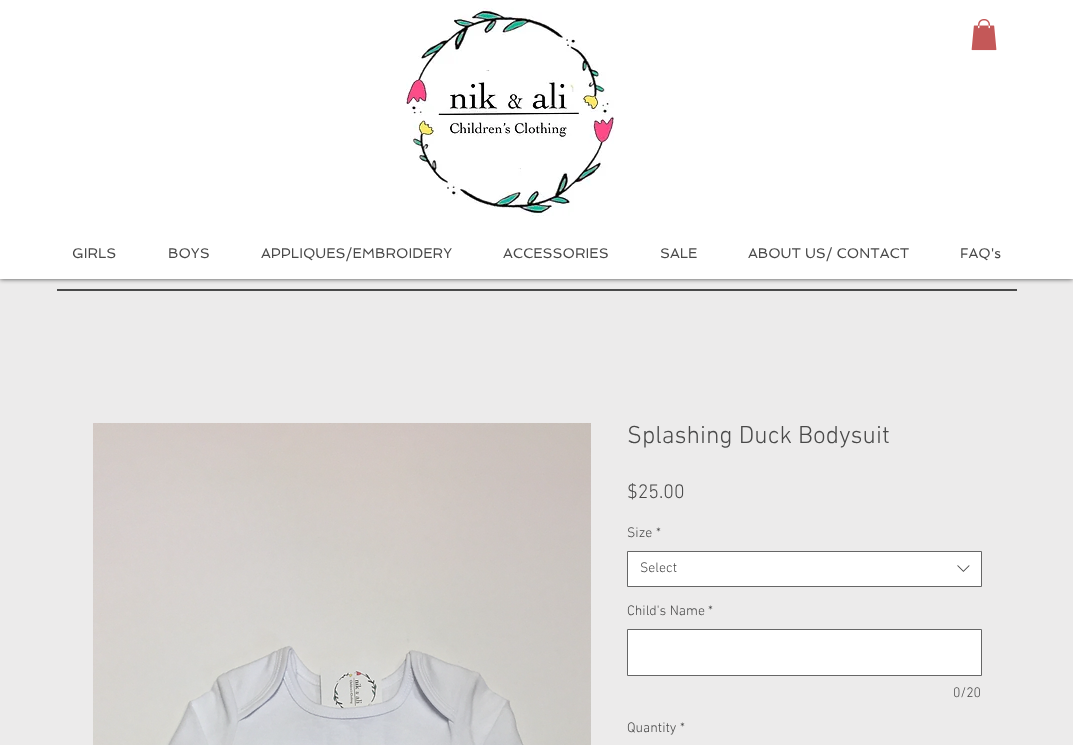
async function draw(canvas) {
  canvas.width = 1073
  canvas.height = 745
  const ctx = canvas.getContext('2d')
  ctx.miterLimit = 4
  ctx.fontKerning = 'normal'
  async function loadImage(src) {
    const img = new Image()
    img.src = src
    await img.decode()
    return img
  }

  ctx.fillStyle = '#ecebeb'
  ctx.fillRect(0, 0, 1073, 745)
  ctx.fillStyle = '#000000b3'
  ctx.filter = 'blur(2.5px)'
  ctx.beginPath()
  ctx.rect(0, 0, 1073, 279)
  ctx.fill()
  ctx.filter = 'none'
  ctx.fillStyle = '#fff'
  ctx.fillRect(0, 0, 1073, 279)
  ctx.drawImage(await loadImage('image0.png'), 406, 8, 208, 208)
  ctx.drawImage(await loadImage('image1.png'), 971, 19, 26, 32)
  ctx.font = '14px Spinnaker'
  ctx.fillStyle = '#494949'
  ctx.fillText('GIRLS', 72, 258)
  ctx.fillText('BOYS', 168, 258)
  ctx.fillText('APPLIQUES/EMBROIDERY', 261, 258)
  ctx.fillText('ACCESSORIES', 503, 258)
  ctx.fillText('SALE', 660, 258)
  ctx.fillText('ABOUT US/ CONTACT', 748, 258)
  ctx.fillText('FAQ\'s', 960, 258)
  ctx.fillRect(57, 289, 960, 2)
  ctx.drawImage(await loadImage('image2.png'), 93, 423, 498, 322)
  ctx.font = '300 25px "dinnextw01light"'
  ctx.fillText('Splashing Duck Bodysuit', 627, 443)
  ctx.font = '300 20px "dinnextw01light"'
  ctx.fillText('$25.00', 627, 498)
  ctx.font = '300 14px "dinnextw01light"'
  ctx.fillText('Size', 627, 537)
  ctx.fillText('*', 656, 537)
  ctx.fillStyle = '#fff'
  ctx.beginPath()
  ctx.rect(627.5, 551.5, 354, 35)
  ctx.fill()
  ctx.strokeStyle = '#666'
  ctx.stroke()
  ctx.fillStyle = '#494949'
  ctx.fillText('Select', 640, 572)
  ctx.drawImage(await loadImage('image3.png'), 957, 565, 13, 7)
  ctx.fillText('Child\'s Name', 627, 615)
  ctx.fillText('*', 708, 615)
  ctx.fillStyle = '#fff'
  ctx.beginPath()
  ctx.rect(627.5, 629.5, 354, 46)
  ctx.fill()
  ctx.stroke()
  ctx.fillStyle = '#494949'
  ctx.fillText('0/20', 953, 697)
  ctx.fillText('Quantity', 627, 732)
  ctx.fillText('*', 680, 732)
}

draw(document.querySelector('canvas'))
